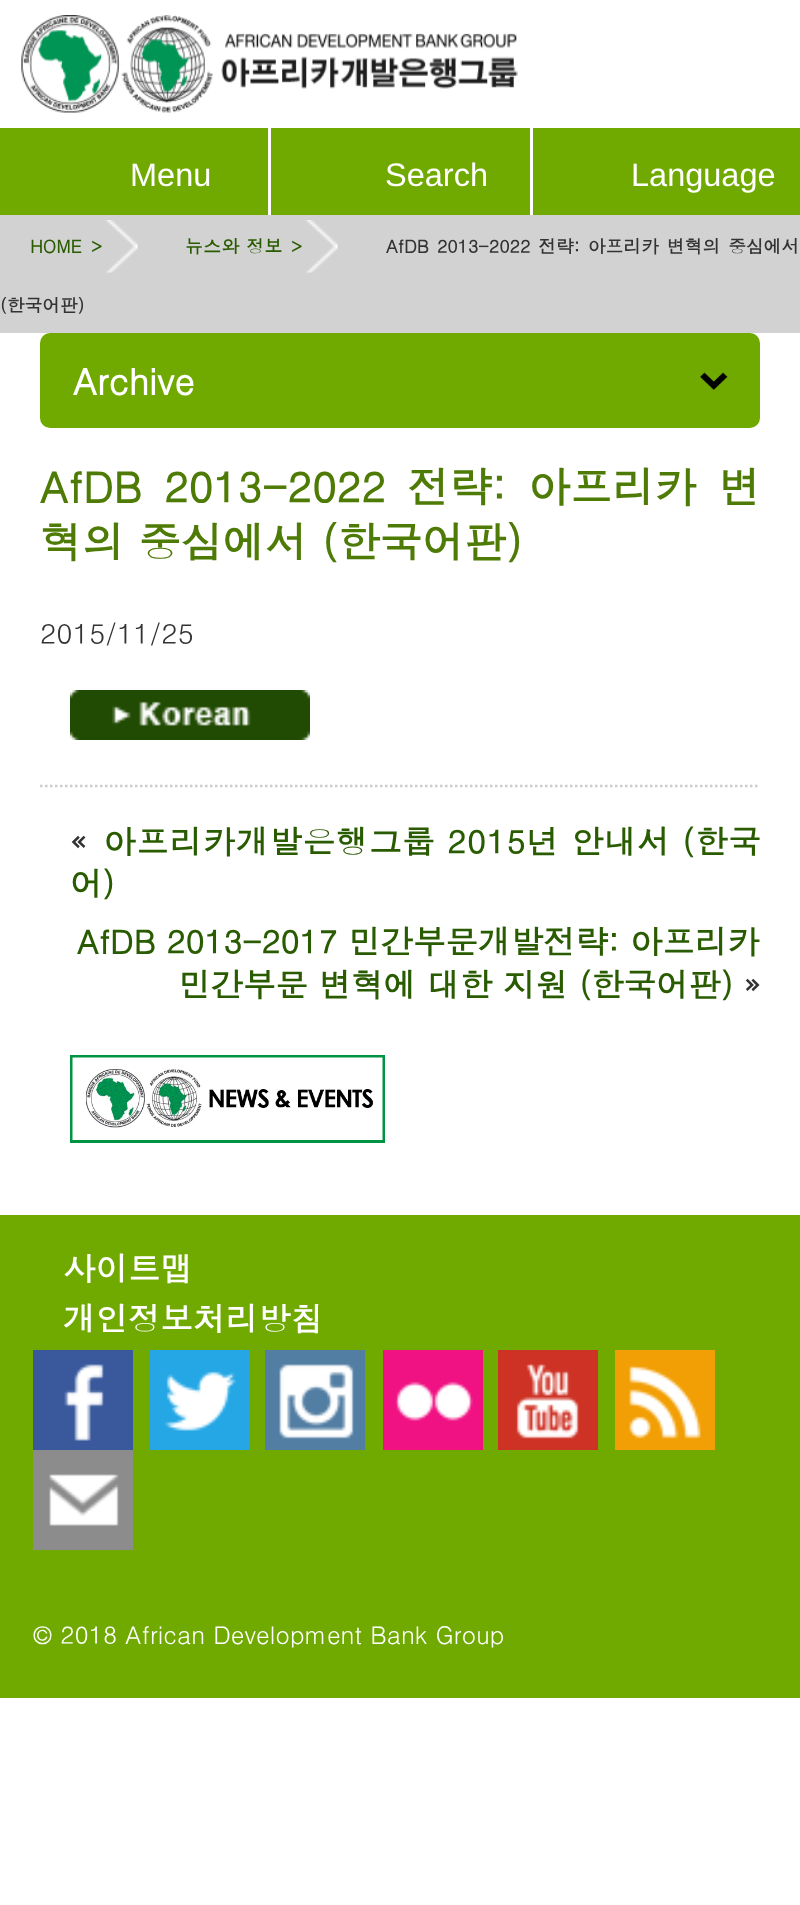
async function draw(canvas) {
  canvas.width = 800
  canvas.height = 1905
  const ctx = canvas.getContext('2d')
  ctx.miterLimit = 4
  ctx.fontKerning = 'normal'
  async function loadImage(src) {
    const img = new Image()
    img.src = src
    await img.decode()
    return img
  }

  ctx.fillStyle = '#fff'
  ctx.fillRect(0, 0, 800, 1905)
  ctx.drawImage(await loadImage('image0.png'), 21, 15, 497, 98)
  ctx.fillStyle = '#70aa00'
  ctx.fillRect(0, 128, 268, 87)
  ctx.font = '32.5px Liberation Sans'
  ctx.fillStyle = '#fff'
  ctx.fillText('Menu', 130, 186)
  ctx.fillStyle = '#70aa00'
  ctx.fillRect(271, 128, 259, 87)
  ctx.fillStyle = '#fff'
  ctx.fillText('Search', 385, 186)
  ctx.fillStyle = '#70aa00'
  ctx.fillRect(533, 128, 267, 87)
  ctx.fillStyle = '#fff'
  ctx.fillText('Language', 631, 186)
  ctx.fillStyle = '#d2d2d2'
  ctx.fillRect(0, 215, 800, 118)
  ctx.font = 'bold 17.8px Dotum'
  ctx.fillStyle = '#295b01'
  ctx.fillText('HOME', 30, 253)
  ctx.fillText('>', 91, 253)
  ctx.drawImage(await loadImage('image1.png'), 105, 220, 33, 53)
  ctx.letterSpacing = '0.5px'
  ctx.fillText('뉴스와 정보', 185, 253)
  ctx.letterSpacing = '0px'
  ctx.fillText('>', 291, 253)
  ctx.drawImage(await loadImage('image1.png'), 305, 220, 33, 53)
  ctx.wordSpacing = '2px'
  ctx.fillStyle = '#333'
  ctx.fillText('AfDB 2013-2022 전략: 아프리카 변혁의 중심에서', 386, 253)
  ctx.wordSpacing = '0px'
  ctx.fillText('(한국어판)', 0, 312)
  ctx.fillStyle = '#70aa00'
  ctx.beginPath()
  ctx.roundRect(40, 333, 720, 95, 10)
  ctx.fill()
  ctx.font = 'bold 36px Dotum'
  ctx.fillStyle = '#fff'
  ctx.fillText('Archive', 73, 395)
  ctx.drawImage(await loadImage('image2.png'), 700, 372, 28, 18)
  ctx.beginPath()
  ctx.moveTo(40, 786)
  ctx.lineTo(760, 786)
  ctx.strokeStyle = '#ccc'
  ctx.lineWidth = 2.5
  ctx.setLineDash([2.5, 2.5])
  ctx.stroke()
  ctx.wordSpacing = '7.5px'
  ctx.font = 'bold 42.25px Dotum'
  ctx.fillStyle = '#4e7b05'
  ctx.fillText('AfDB 2013-2022 전략: 아프리카 변', 40, 503)
  ctx.wordSpacing = '0px'
  ctx.fillText('혁의 중심에서 (한국어판)', 40, 558)
  ctx.font = '28px Dotum'
  ctx.fillStyle = '#333'
  ctx.fillText('2015/11/25', 40, 644)
  ctx.drawImage(await loadImage('image3.png'), 70, 690, 240, 50)
  ctx.font = 'bold 32.5px Dotum'
  ctx.fillText('«', 70, 854)
  ctx.letterSpacing = '0.75px'
  ctx.fillStyle = '#295b01'
  ctx.fillText('아프리카개발은행그룹 2015년 안내서 (한국', 103, 854)
  ctx.letterSpacing = '0px'
  ctx.fillText('어)', 70, 896)
  ctx.fillText('AfDB 2013-2017 민간부문개발전략: 아프리카', 77, 954)
  ctx.fillText('민간부문 변혁에 대한 지원 (한국어판)', 178, 997)
  ctx.fillStyle = '#333'
  ctx.fillText('»', 744, 997)
  ctx.strokeStyle = '#009442'
  ctx.lineWidth = 3
  ctx.setLineDash([])
  ctx.strokeRect(71.5, 1056.5, 312, 85)
  ctx.drawImage(await loadImage('image4.png'), 72, 1057, 311, 83)
  ctx.fillStyle = '#70aa00'
  ctx.fillRect(0, 1215, 800, 483)
  ctx.fillStyle = '#fff'
  ctx.fillText('사이트맵', 63, 1281)
  ctx.fillText('개인정보처리방침', 63, 1331)
  ctx.fillStyle = '#3a599c'
  ctx.fillRect(33, 1350, 100, 100)
  ctx.drawImage(await loadImage('image5.png'), 64, 1364, 40, 77)
  ctx.fillStyle = '#25a7e5'
  ctx.fillRect(150, 1350, 100, 100)
  ctx.drawImage(await loadImage('image6.png'), 164, 1371, 72, 60)
  ctx.fillStyle = '#527ea3'
  ctx.fillRect(265, 1350, 100, 100)
  ctx.drawImage(await loadImage('image7.png'), 279, 1364, 75, 75)
  ctx.fillStyle = '#f01283'
  ctx.fillRect(383, 1350, 100, 100)
  ctx.drawImage(await loadImage('image8.png'), 395, 1381, 78, 40)
  ctx.fillStyle = '#ce3225'
  ctx.fillRect(498, 1350, 100, 100)
  ctx.drawImage(await loadImage('image9.png'), 516, 1364, 63, 75)
  ctx.fillStyle = '#f29f06'
  ctx.fillRect(615, 1350, 100, 100)
  ctx.drawImage(await loadImage('image10.png'), 629, 1365, 72, 74)
  ctx.fillStyle = '#8c8c8c'
  ctx.fillRect(33, 1450, 100, 100)
  ctx.drawImage(await loadImage('image11.png'), 49, 1474, 70, 52)
  ctx.font = '24.4px Dotum'
  ctx.fillStyle = '#fff'
  ctx.fillText('© 2018 African Development Bank Group', 33, 1644)
}

draw(document.querySelector('canvas'))
